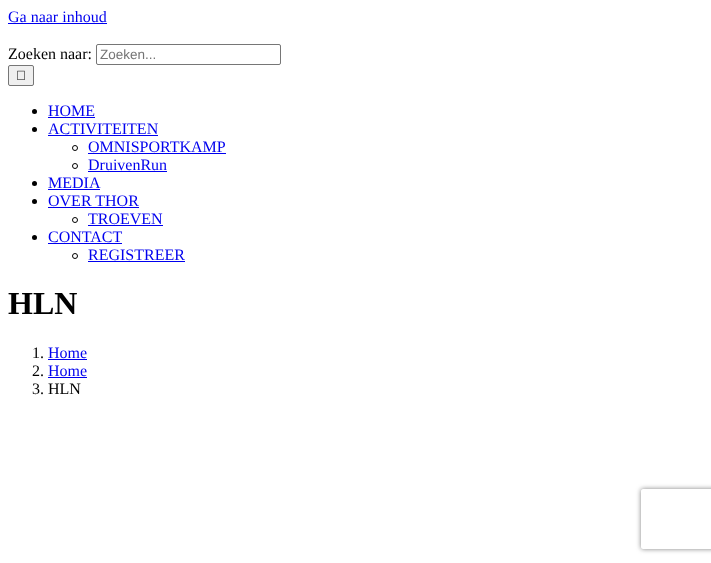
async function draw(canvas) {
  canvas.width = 711
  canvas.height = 563
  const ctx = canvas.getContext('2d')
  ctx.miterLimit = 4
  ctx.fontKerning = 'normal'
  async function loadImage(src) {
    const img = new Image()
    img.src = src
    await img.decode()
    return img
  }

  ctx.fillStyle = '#fff'
  ctx.fillRect(0, 0, 711, 563)
  ctx.font = '16px Liberation Serif'
  ctx.fillStyle = '#00e'
  ctx.fillText('Ga naar inhoud', 8, 22)
  ctx.fillRect(8, 23, 99, 1)
  ctx.fillStyle = '#000'
  ctx.fillText('Zoeken naar:', 8, 59)
  ctx.beginPath()
  ctx.roundRect(96.5, 44.5, 184, 20, 1.5)
  ctx.strokeStyle = '#767676'
  ctx.stroke()
  ctx.font = '13.5px Liberation Sans'
  ctx.fillStyle = '#757575'
  ctx.fillText('Zoeken...', 100, 59)
  ctx.fillStyle = '#efefef'
  ctx.beginPath()
  ctx.roundRect(8.5, 65.5, 25, 20, 1.5)
  ctx.fill()
  ctx.stroke()
  ctx.drawImage(await loadImage('image0.png'), 17, 70, 8, 10)
  ctx.fillStyle = '#000'
  ctx.beginPath()
  ctx.arc(34.5, 111.5, 2.5, 0, 2 * Math.PI)
  ctx.fill()
  ctx.font = '16px Liberation Serif'
  ctx.fillStyle = '#00e'
  ctx.fillText('HOME', 48, 116)
  ctx.fillRect(48, 117, 47, 1)
  ctx.fillStyle = '#000'
  ctx.beginPath()
  ctx.arc(34.5, 129.5, 2.5, 0, 2 * Math.PI)
  ctx.fill()
  ctx.fillStyle = '#00e'
  ctx.fillText('ACTIVITEITEN', 48, 134)
  ctx.fillRect(48, 135, 110, 1)
  ctx.beginPath()
  ctx.arc(75, 148, 2.5, 0, 2 * Math.PI)
  ctx.strokeStyle = '#000'
  ctx.stroke()
  ctx.fillText('OMNISPORTKAMP', 88, 152)
  ctx.fillRect(88, 153, 138, 1)
  ctx.beginPath()
  ctx.arc(75, 166, 2.5, 0, 2 * Math.PI)
  ctx.stroke()
  ctx.fillText('DruivenRun', 88, 170)
  ctx.fillRect(88, 171, 79, 1)
  ctx.fillStyle = '#000'
  ctx.beginPath()
  ctx.arc(34.5, 183.5, 2.5, 0, 2 * Math.PI)
  ctx.fill()
  ctx.fillStyle = '#00e'
  ctx.fillText('MEDIA', 48, 188)
  ctx.fillRect(48, 189, 52, 1)
  ctx.fillStyle = '#000'
  ctx.beginPath()
  ctx.arc(34.5, 201.5, 2.5, 0, 2 * Math.PI)
  ctx.fill()
  ctx.fillStyle = '#00e'
  ctx.fillText('OVER THOR', 48, 206)
  ctx.fillRect(48, 207, 91, 1)
  ctx.beginPath()
  ctx.arc(75, 220, 2.5, 0, 2 * Math.PI)
  ctx.stroke()
  ctx.fillText('TROEVEN', 88, 224)
  ctx.fillRect(88, 225, 75, 1)
  ctx.fillStyle = '#000'
  ctx.beginPath()
  ctx.arc(34.5, 237.5, 2.5, 0, 2 * Math.PI)
  ctx.fill()
  ctx.fillStyle = '#00e'
  ctx.fillText('CONTACT', 48, 242)
  ctx.fillRect(48, 243, 74, 1)
  ctx.beginPath()
  ctx.arc(75, 256, 2.5, 0, 2 * Math.PI)
  ctx.stroke()
  ctx.fillText('REGISTREER', 88, 260)
  ctx.fillRect(88, 261, 97, 1)
  ctx.font = 'bold 32px Liberation Serif'
  ctx.fillStyle = '#000'
  ctx.fillText('HLN', 8, 314)
  ctx.font = '16px Liberation Serif'
  ctx.fillText('1.', 32, 358)
  ctx.fillStyle = '#00e'
  ctx.fillText('Home', 48, 358)
  ctx.fillRect(48, 359, 39, 1)
  ctx.fillStyle = '#000'
  ctx.fillText('2.', 32, 376)
  ctx.fillStyle = '#00e'
  ctx.fillText('Home', 48, 376)
  ctx.fillRect(48, 377, 39, 1)
  ctx.fillStyle = '#000'
  ctx.fillText('3. HLN', 32, 394)
  ctx.save()
  ctx.beginPath()
  ctx.moveTo(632, 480)
  ctx.lineTo(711, 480)
  ctx.lineTo(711, 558)
  ctx.lineTo(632, 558)
  ctx.closePath()
  ctx.moveTo(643, 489)
  ctx.lineTo(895, 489)
  ctx.bezierCurveTo(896, 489, 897, 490, 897, 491)
  ctx.lineTo(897, 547)
  ctx.bezierCurveTo(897, 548, 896, 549, 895, 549)
  ctx.lineTo(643, 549)
  ctx.bezierCurveTo(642, 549, 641, 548, 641, 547)
  ctx.lineTo(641, 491)
  ctx.bezierCurveTo(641, 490, 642, 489, 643, 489)
  ctx.closePath()
  ctx.clip('evenodd')
  ctx.fillStyle = '#808080'
  ctx.filter = 'blur(2.5px)'
  ctx.beginPath()
  ctx.roundRect(641, 489, 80, 60, 2)
  ctx.fill()
  ctx.filter = 'none'
  ctx.restore()
}

draw(document.querySelector('canvas'))
